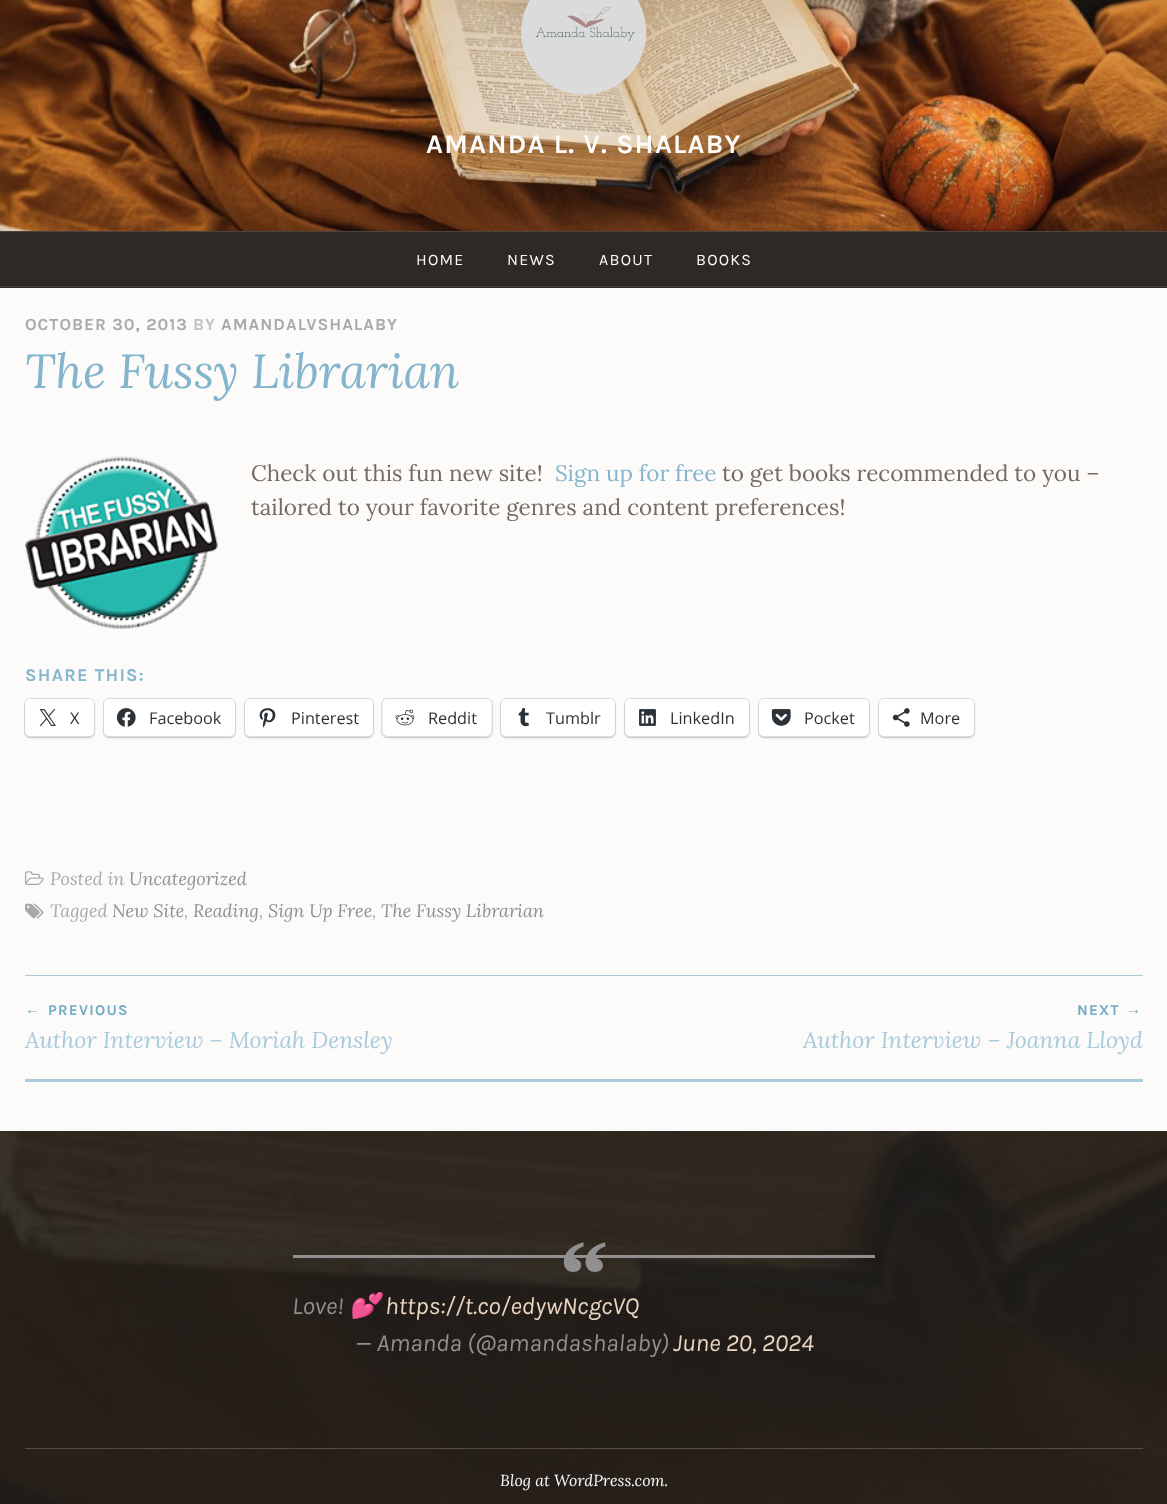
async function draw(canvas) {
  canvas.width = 1167
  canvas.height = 1504
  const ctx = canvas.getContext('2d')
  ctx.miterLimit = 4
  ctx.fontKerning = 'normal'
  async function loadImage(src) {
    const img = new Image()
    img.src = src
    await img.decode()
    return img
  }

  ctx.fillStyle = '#fcfbfa'
  ctx.fillRect(0, 0, 1167, 1504)
  ctx.drawImage(await loadImage('image0.png'), 0, 0, 1167, 231)
  ctx.drawImage(await loadImage('image1.png'), 521, 0, 125, 95)
  ctx.letterSpacing = '1.25px'
  ctx.font = 'bold 27px Karla'
  ctx.fillStyle = '#fcfbf9'
  ctx.fillText('AMANDA L. V. SHALABY', 426, 153)
  ctx.fillStyle = '#2d2a26'
  ctx.fillRect(0, 232, 1167, 56)
  ctx.fillStyle = '#49443d'
  ctx.fillRect(0, 231, 1167, 1)
  ctx.fillRect(0, 286, 1167, 1)
  ctx.font = '16px Karla'
  ctx.fillStyle = '#fcfbf9'
  ctx.fillText('HOME', 416, 265)
  ctx.fillText('NEWS', 507, 265)
  ctx.fillText('ABOUT', 599, 265)
  ctx.fillText('BOOKS', 696, 265)
  ctx.letterSpacing = '1px'
  ctx.font = 'bold 17px Karla'
  ctx.fillStyle = '#a9a9a9'
  ctx.fillText('OCTOBER 30, 2013', 25, 330)
  ctx.fillStyle = '#c3c3c3'
  ctx.fillText('BY', 193, 330)
  ctx.fillStyle = '#a9a9a9'
  ctx.fillText('AMANDALVSHALABY', 221, 330)
  ctx.letterSpacing = '0px'
  ctx.font = 'italic 48px Lora'
  ctx.fillStyle = '#83b6cc'
  ctx.fillText('The Fussy Librarian', 25, 388)
  ctx.drawImage(await loadImage('image2.png'), 25, 456, 193, 173)
  ctx.font = '22.5px Lora'
  ctx.fillStyle = '#726b60'
  ctx.fillText('Check out this fun new site!', 251, 481)
  ctx.fillStyle = '#83b6cc'
  ctx.fillText('Sign up for free', 555, 481)
  ctx.fillStyle = '#726b60'
  ctx.fillText('to get books recommended to you –', 722, 481)
  ctx.fillText('tailored to your favorite genres and content preferences!', 251, 515)
  ctx.letterSpacing = '1.25px'
  ctx.font = 'bold 18px Karla'
  ctx.fillStyle = '#83b6cc'
  ctx.fillText('SHARE THIS:', 25, 681)
  ctx.beginPath()
  ctx.roundRect(24.5, 698.5, 70, 39, 5.5)
  ctx.strokeStyle = '#dedddc'
  ctx.stroke()
  ctx.fillStyle = '#0000001f'
  ctx.filter = 'blur(1px)'
  ctx.beginPath()
  ctx.roundRect(25, 700, 69, 38, 5)
  ctx.fill()
  ctx.filter = 'none'
  ctx.fillStyle = '#fff'
  ctx.beginPath()
  ctx.roundRect(25, 699, 69, 37, 5)
  ctx.fill()
  ctx.drawImage(await loadImage('image3.png'), 39, 709, 17, 17)
  ctx.letterSpacing = '0px'
  ctx.font = '16.25px Open Sans'
  ctx.fillStyle = '#2c3338'
  ctx.fillText('X', 70, 724)
  ctx.beginPath()
  ctx.roundRect(103.5, 698.5, 132, 39, 5.5)
  ctx.stroke()
  ctx.fillStyle = '#0000001f'
  ctx.filter = 'blur(1px)'
  ctx.beginPath()
  ctx.roundRect(104, 700, 131, 38, 5)
  ctx.fill()
  ctx.filter = 'none'
  ctx.fillStyle = '#fff'
  ctx.beginPath()
  ctx.roundRect(104, 699, 131, 37, 5)
  ctx.fill()
  ctx.drawImage(await loadImage('image4.png'), 116, 708, 20, 19)
  ctx.fillStyle = '#2c3338'
  ctx.fillText('Facebook', 149, 724)
  ctx.beginPath()
  ctx.roundRect(244.5, 698.5, 129, 39, 5.5)
  ctx.stroke()
  ctx.fillStyle = '#0000001f'
  ctx.filter = 'blur(1px)'
  ctx.beginPath()
  ctx.roundRect(245, 700, 128, 38, 5)
  ctx.fill()
  ctx.filter = 'none'
  ctx.fillStyle = '#fff'
  ctx.beginPath()
  ctx.roundRect(245, 699, 128, 37, 5)
  ctx.fill()
  ctx.drawImage(await loadImage('image5.png'), 259, 708, 17, 20)
  ctx.fillStyle = '#2c3338'
  ctx.fillText('Pinterest', 291, 724)
  ctx.beginPath()
  ctx.roundRect(381.5, 698.5, 111, 39, 5.5)
  ctx.stroke()
  ctx.fillStyle = '#0000001f'
  ctx.filter = 'blur(1px)'
  ctx.beginPath()
  ctx.roundRect(383, 700, 108, 38, 5)
  ctx.fill()
  ctx.filter = 'none'
  ctx.fillStyle = '#fff'
  ctx.beginPath()
  ctx.roundRect(383, 699, 108, 37, 5)
  ctx.fill()
  ctx.drawImage(await loadImage('image6.png'), 395, 709, 20, 17)
  ctx.fillStyle = '#2c3338'
  ctx.fillText('Reddit', 428, 724)
  ctx.beginPath()
  ctx.roundRect(500.5, 698.5, 115, 39, 5.5)
  ctx.stroke()
  ctx.fillStyle = '#0000001f'
  ctx.filter = 'blur(1px)'
  ctx.beginPath()
  ctx.roundRect(501, 700, 114, 38, 5)
  ctx.fill()
  ctx.filter = 'none'
  ctx.fillStyle = '#fff'
  ctx.beginPath()
  ctx.roundRect(501, 699, 114, 37, 5)
  ctx.fill()
  ctx.drawImage(await loadImage('image7.png'), 518, 708, 11, 19)
  ctx.fillStyle = '#2c3338'
  ctx.fillText('Tumblr', 546, 724)
  ctx.beginPath()
  ctx.roundRect(624.5, 698.5, 125, 39, 5.5)
  ctx.stroke()
  ctx.fillStyle = '#0000001f'
  ctx.filter = 'blur(1px)'
  ctx.beginPath()
  ctx.roundRect(625, 700, 124, 38, 5)
  ctx.fill()
  ctx.filter = 'none'
  ctx.fillStyle = '#fff'
  ctx.beginPath()
  ctx.roundRect(625, 699, 124, 37, 5)
  ctx.fill()
  ctx.drawImage(await loadImage('image8.png'), 639, 709, 17, 17)
  ctx.fillStyle = '#2c3338'
  ctx.fillText('LinkedIn', 670, 724)
  ctx.beginPath()
  ctx.roundRect(758.5, 698.5, 111, 39, 5.5)
  ctx.stroke()
  ctx.fillStyle = '#0000001f'
  ctx.filter = 'blur(1px)'
  ctx.beginPath()
  ctx.roundRect(759, 700, 110, 38, 5)
  ctx.fill()
  ctx.filter = 'none'
  ctx.fillStyle = '#fff'
  ctx.beginPath()
  ctx.roundRect(759, 699, 110, 37, 5)
  ctx.fill()
  ctx.drawImage(await loadImage('image9.png'), 771, 709, 20, 17)
  ctx.fillStyle = '#2c3338'
  ctx.fillText('Pocket', 804, 724)
  ctx.beginPath()
  ctx.roundRect(878.5, 698.5, 96, 39, 5.5)
  ctx.stroke()
  ctx.fillStyle = '#0000001f'
  ctx.filter = 'blur(1px)'
  ctx.beginPath()
  ctx.roundRect(879, 700, 95, 38, 5)
  ctx.fill()
  ctx.filter = 'none'
  ctx.fillStyle = '#fff'
  ctx.beginPath()
  ctx.roundRect(879, 699, 95, 37, 5)
  ctx.fill()
  ctx.drawImage(await loadImage('image10.png'), 892, 708, 18, 19)
  ctx.fillStyle = '#2c3338'
  ctx.fillText('More', 920, 724)
  ctx.drawImage(await loadImage('image11.png'), 25, 871, 19, 14)
  ctx.font = 'italic 18px Lora'
  ctx.fillStyle = '#a9a9a9'
  ctx.fillText('Posted in', 50, 885)
  ctx.fillStyle = '#909090'
  ctx.fillText('Uncategorized', 129, 885)
  ctx.drawImage(await loadImage('image12.png'), 25, 903, 19, 16)
  ctx.fillStyle = '#a9a9a9'
  ctx.fillText('Tagged', 50, 917)
  ctx.fillStyle = '#909090'
  ctx.fillText('New Site', 112, 917)
  ctx.fillStyle = '#a9a9a9'
  ctx.fillText(',', 184, 917)
  ctx.fillStyle = '#909090'
  ctx.fillText('Reading', 193, 917)
  ctx.fillStyle = '#a9a9a9'
  ctx.fillText(',', 259, 917)
  ctx.fillStyle = '#909090'
  ctx.fillText('Sign Up Free', 268, 917)
  ctx.fillStyle = '#a9a9a9'
  ctx.fillText(',', 372, 917)
  ctx.fillStyle = '#909090'
  ctx.fillText('The Fussy Librarian', 381, 917)
  ctx.fillStyle = '#a7cbdb'
  ctx.fillRect(25, 975, 1118, 1)
  ctx.fillRect(25, 1079, 1118, 3)
  ctx.letterSpacing = '1.25px'
  ctx.font = '15px Liberation Serif'
  ctx.fillStyle = '#71abc5'
  ctx.fillText('←', 25, 1014)
  ctx.font = 'bold 15px Karla'
  ctx.fillText('PREVIOUS', 48, 1015)
  ctx.letterSpacing = '0px'
  ctx.font = 'italic 23px Lora'
  ctx.fillStyle = '#a7cbdb'
  ctx.fillText('Author Interview – Moriah Densley', 25, 1048)
  ctx.letterSpacing = '1.25px'
  ctx.font = 'bold 15px Karla'
  ctx.fillStyle = '#71abc5'
  ctx.fillText('NEXT', 1077, 1015)
  ctx.font = '15px Liberation Serif'
  ctx.fillText('→', 1126, 1014)
  ctx.letterSpacing = '0px'
  ctx.font = 'italic 23px Lora'
  ctx.fillStyle = '#a7cbdb'
  ctx.fillText('Author Interview – Joanna Lloyd', 803, 1048)
  ctx.drawImage(await loadImage('image13.png'), 0, 1131, 1167, 373)
  ctx.fillStyle = '#e9d5c040'
  ctx.fillRect(25, 1448, 1118, 1)
  ctx.fillStyle = '#909090'
  ctx.fillRect(293, 1255, 582, 3)
  ctx.font = 'bold 99px Liberation Serif'
  ctx.fillText('“', 559, 1308)
  ctx.font = 'italic 24.75px Karla'
  ctx.fillText('Love!', 292, 1314)
  ctx.font = 'italic 24.75px Noto Color Emoji'
  ctx.fillText('💕', 349, 1314)
  ctx.font = 'italic 24.75px Karla'
  ctx.fillStyle = '#e9d5c0'
  ctx.fillText('https://t.co/edywNcgcVQ', 385, 1314)
  ctx.fillStyle = '#909090'
  ctx.fillText('— Amanda (@amandashalaby)', 355, 1351)
  ctx.fillStyle = '#e9d5c0'
  ctx.fillText('June 20, 2024', 673, 1351)
  ctx.font = 'italic 16px Lora'
  ctx.fillStyle = '#fcfbf9'
  ctx.fillText('Blog at WordPress.com.', 500, 1486)
}

draw(document.querySelector('canvas'))
